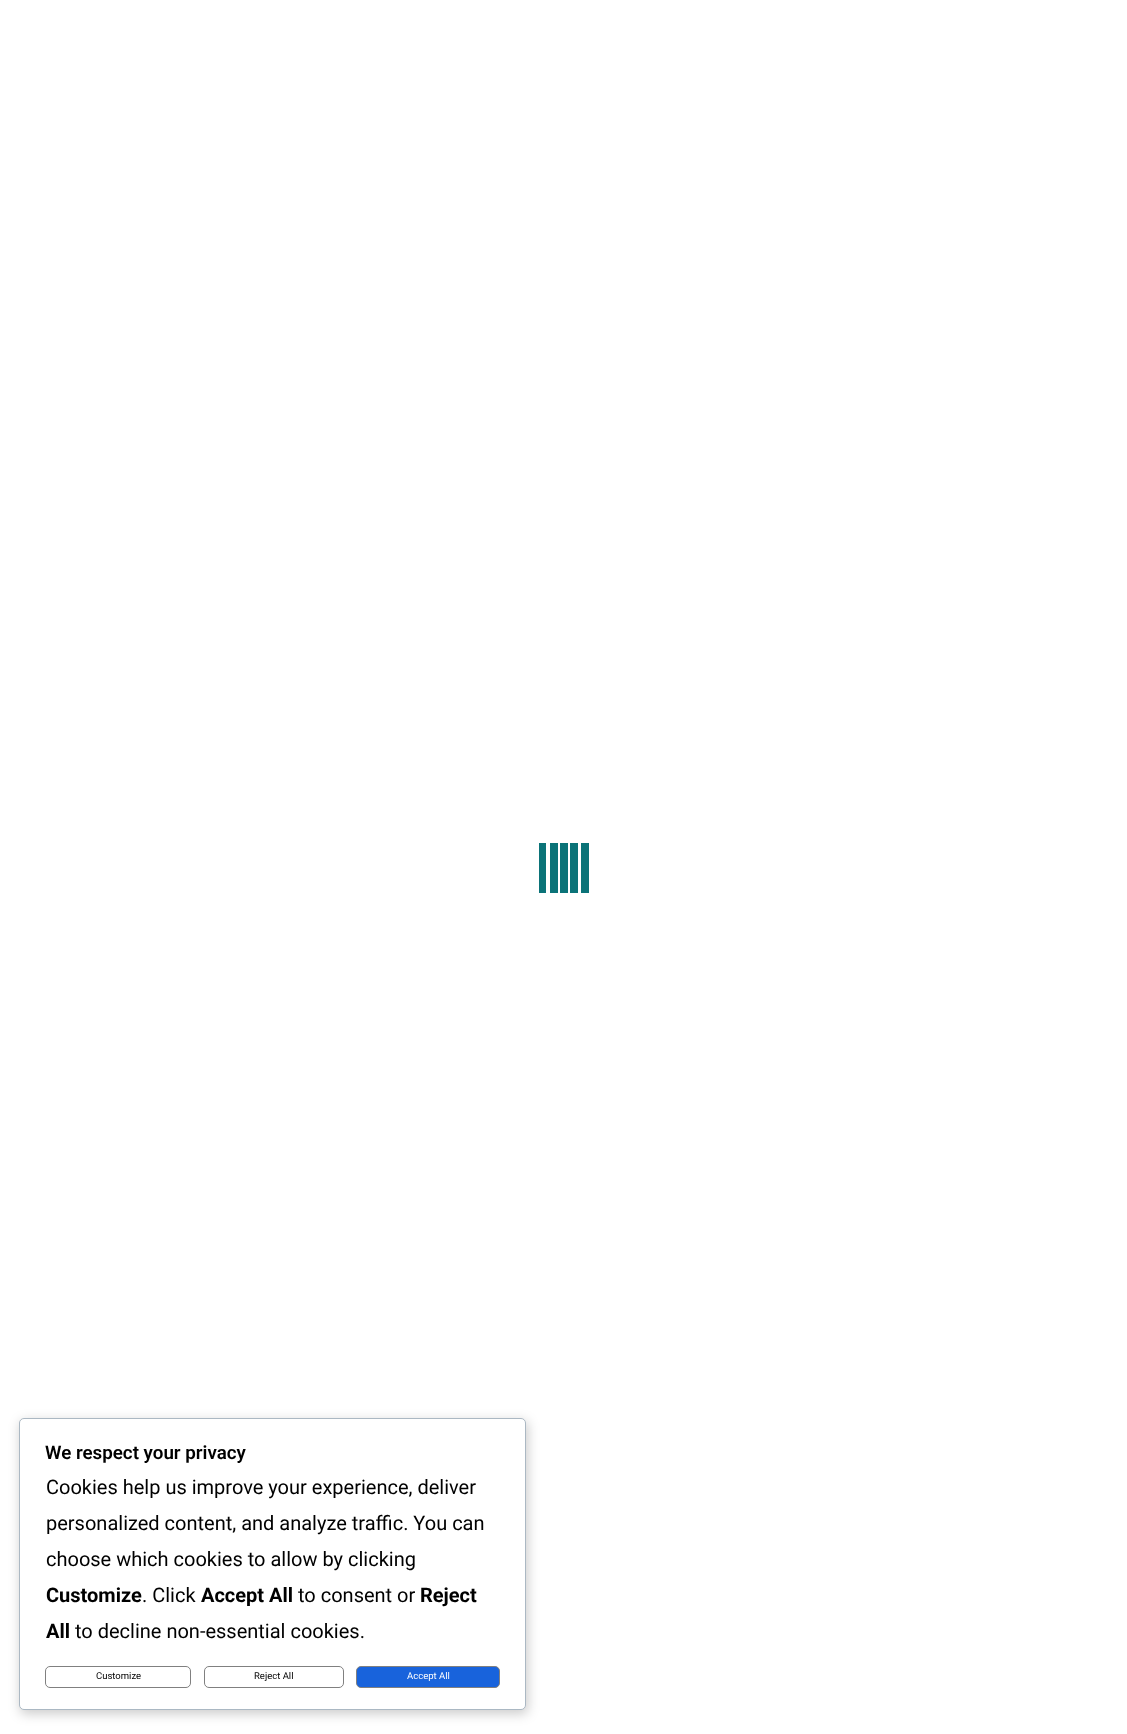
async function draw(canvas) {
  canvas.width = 1127
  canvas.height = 1734
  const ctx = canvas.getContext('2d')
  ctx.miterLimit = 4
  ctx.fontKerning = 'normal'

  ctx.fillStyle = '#fff'
  ctx.fillRect(0, 0, 1127, 1734)
  ctx.fillStyle = '#0b7378'
  ctx.fillRect(539, 843, 7, 50)
  ctx.fillRect(550, 843, 8, 50)
  ctx.fillRect(560, 843, 8, 50)
  ctx.fillRect(570, 843, 8, 50)
  ctx.fillRect(581, 843, 8, 50)
  ctx.fillStyle = '#00000033'
  ctx.filter = 'blur(6px)'
  ctx.beginPath()
  ctx.roundRect(20, 1421, 508, 293, 5)
  ctx.fill()
  ctx.filter = 'none'
  ctx.fillStyle = '#fff'
  ctx.beginPath()
  ctx.roundRect(19.5, 1418.5, 506, 291, 4.5)
  ctx.fill()
  ctx.strokeStyle = '#abb8c3'
  ctx.stroke()
  ctx.font = '600 18.75px Roboto'
  ctx.fillStyle = '#000'
  ctx.fillText('We respect your privacy', 45, 1459)
  ctx.font = '20px Roboto'
  ctx.fillText('Cookies help us improve your experience, deliver', 46, 1494)
  ctx.fillText('personalized content, and analyze traffic. You can', 46, 1530)
  ctx.fillText('choose which cookies to allow by clicking', 46, 1566)
  ctx.font = 'bold 20px Roboto'
  ctx.fillText('Customize', 46, 1602)
  ctx.font = '20px Roboto'
  ctx.fillText('. Click', 142, 1602)
  ctx.font = 'bold 20px Roboto'
  ctx.fillText('Accept All', 201, 1602)
  ctx.font = '20px Roboto'
  ctx.fillText('to consent or', 298, 1602)
  ctx.font = 'bold 20px Roboto'
  ctx.fillText('Reject', 420, 1602)
  ctx.fillText('All', 46, 1638)
  ctx.font = '20px Roboto'
  ctx.fillText('to decline non-essential cookies.', 75, 1638)
  ctx.beginPath()
  ctx.roundRect(45.5, 1666.5, 145, 21, 4.5)
  ctx.strokeStyle = '#808080'
  ctx.stroke()
  ctx.font = '9.5px Roboto'
  ctx.fillText('Customize', 96, 1679)
  ctx.beginPath()
  ctx.roundRect(204.5, 1666.5, 139, 21, 4.5)
  ctx.stroke()
  ctx.fillText('Reject All', 254, 1679)
  ctx.fillStyle = '#1863dc'
  ctx.beginPath()
  ctx.roundRect(356.5, 1666.5, 143, 21, 4.5)
  ctx.fill()
  ctx.stroke()
  ctx.fillStyle = '#fff'
  ctx.fillText('Accept All', 407, 1679)
}

draw(document.querySelector('canvas'))
